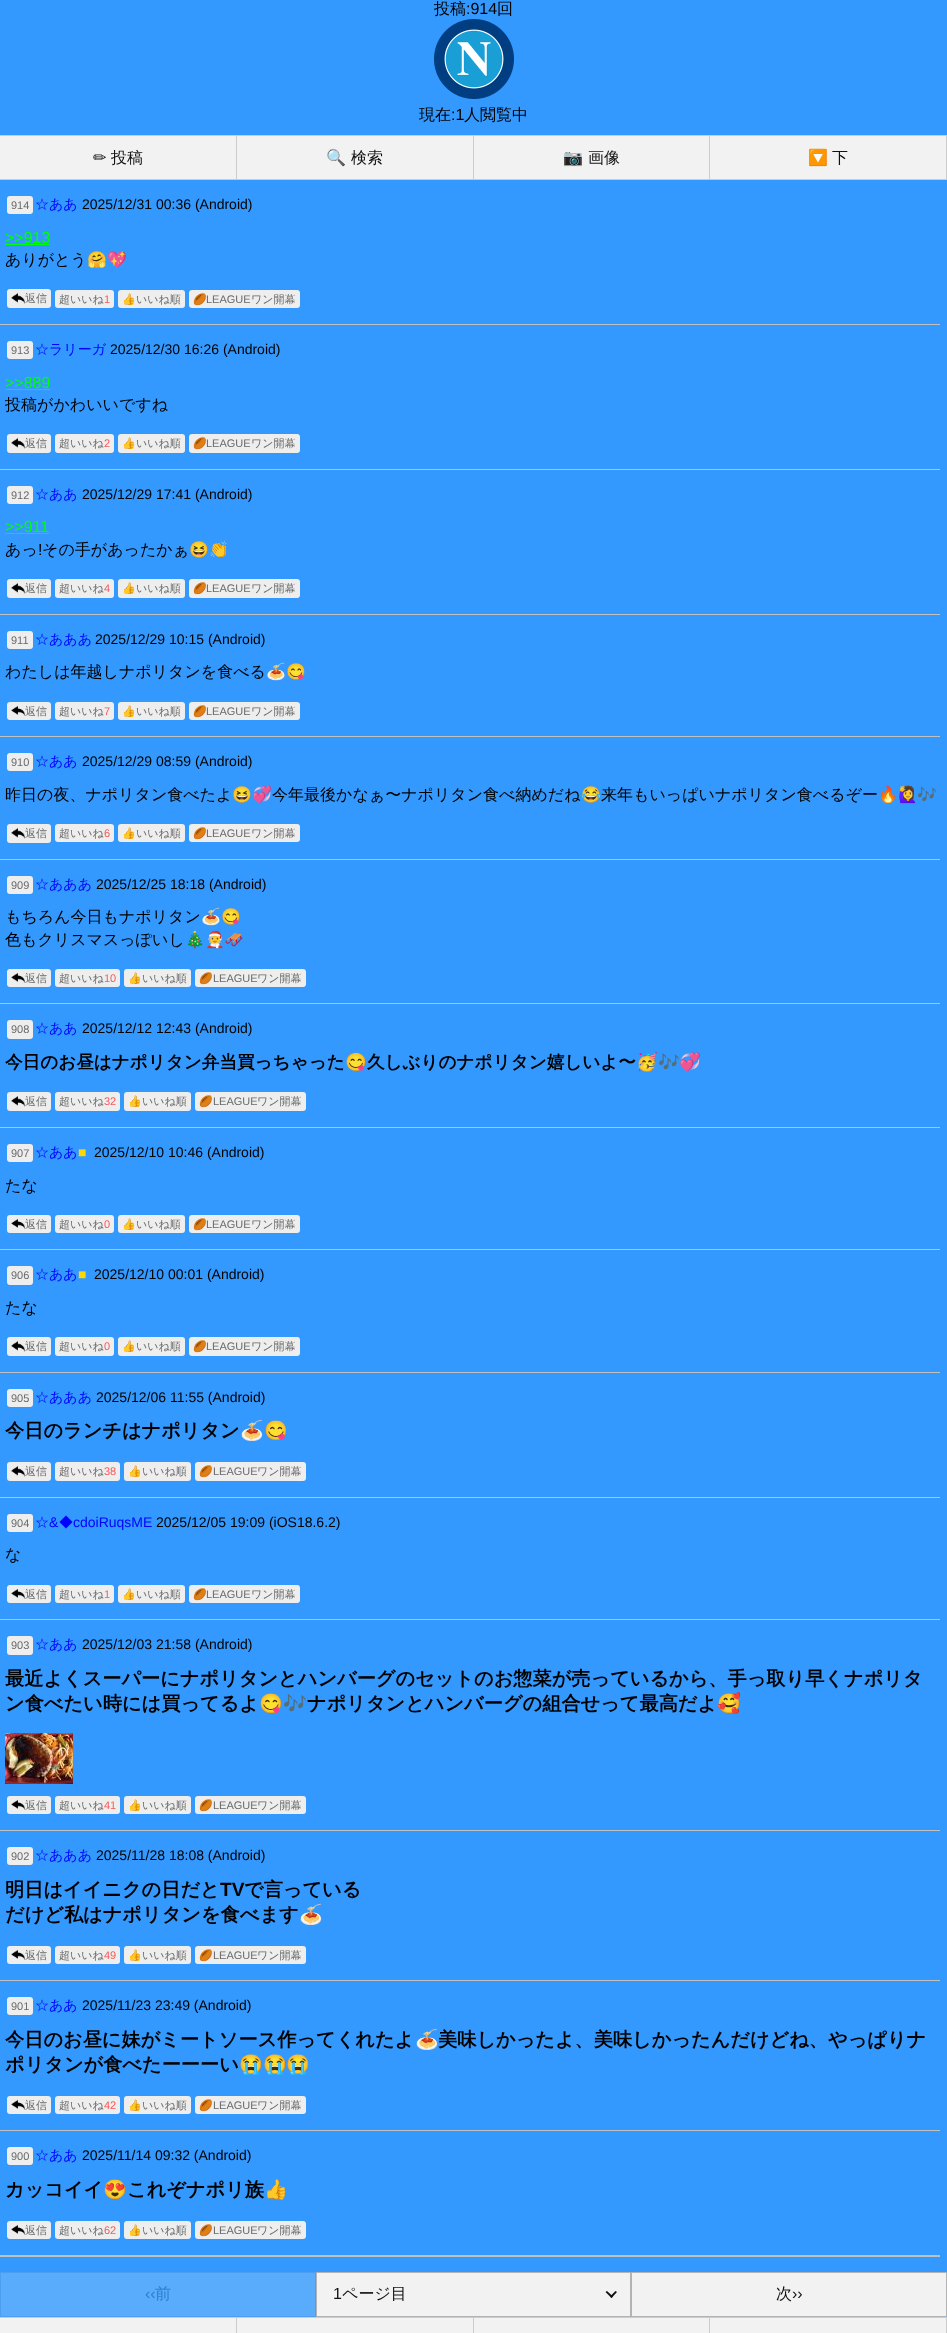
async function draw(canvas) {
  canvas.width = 947
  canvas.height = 2333
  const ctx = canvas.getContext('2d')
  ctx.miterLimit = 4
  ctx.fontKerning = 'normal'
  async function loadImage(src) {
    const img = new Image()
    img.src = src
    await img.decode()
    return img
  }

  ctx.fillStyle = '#39f'
  ctx.fillRect(0, 0, 947, 2333)
  ctx.font = '500 16px WenQuanYi Zen Hei'
  ctx.fillStyle = '#000'
  ctx.fillText('投稿', 434, 14)
  ctx.font = '16px Liberation Sans'
  ctx.fillText(':914', 466, 14)
  ctx.font = '500 16px WenQuanYi Zen Hei'
  ctx.fillText('回', 497, 14)
  ctx.drawImage(await loadImage('image0.png'), 434, 19, 80, 80)
  ctx.fillText('現在', 419, 120)
  ctx.font = '16px Liberation Sans'
  ctx.fillText(':1', 451, 120)
  ctx.font = '500 16px WenQuanYi Zen Hei'
  ctx.fillText('人閲覧中', 464, 120)
  ctx.fillStyle = '#f2f2f2'
  ctx.fillRect(0, 136, 236, 43)
  ctx.fillStyle = '#ccc'
  ctx.fillRect(0, 135, 947, 1)
  ctx.fillRect(236, 135, 1, 45)
  ctx.fillRect(0, 179, 237, 1)
  ctx.font = '16px DejaVu Sans'
  ctx.fillStyle = '#111'
  ctx.fillText('✏', 93, 163)
  ctx.font = '500 16px WenQuanYi Zen Hei'
  ctx.fillText('投稿', 111, 163)
  ctx.fillStyle = '#f2f2f2'
  ctx.fillRect(237, 136, 236, 43)
  ctx.fillStyle = '#ccc'
  ctx.fillRect(473, 135, 1, 45)
  ctx.fillRect(237, 179, 237, 1)
  ctx.font = '16px Noto Color Emoji'
  ctx.fillStyle = '#111'
  ctx.fillText('🔍', 326, 163)
  ctx.font = '500 16px WenQuanYi Zen Hei'
  ctx.fillText('検索', 351, 163)
  ctx.fillStyle = '#f2f2f2'
  ctx.fillRect(474, 136, 235, 43)
  ctx.fillStyle = '#ccc'
  ctx.fillRect(709, 135, 1, 45)
  ctx.fillRect(474, 179, 236, 1)
  ctx.font = '16px Noto Color Emoji'
  ctx.fillStyle = '#111'
  ctx.fillText('📷', 563, 163)
  ctx.font = '500 16px WenQuanYi Zen Hei'
  ctx.fillText('画像', 588, 163)
  ctx.fillStyle = '#f2f2f2'
  ctx.fillRect(710, 136, 236, 43)
  ctx.fillStyle = '#ccc'
  ctx.fillRect(946, 135, 1, 45)
  ctx.fillRect(710, 179, 237, 1)
  ctx.font = '16px Noto Color Emoji'
  ctx.fillStyle = '#111'
  ctx.fillText('🔽', 808, 163)
  ctx.font = '500 16px WenQuanYi Zen Hei'
  ctx.fillText('下', 832, 163)
  ctx.fillStyle = '#eee'
  ctx.beginPath()
  ctx.roundRect(7, 196, 26, 18, 3)
  ctx.fill()
  ctx.font = '11px Liberation Sans'
  ctx.fillStyle = '#696969'
  ctx.fillText('914', 11, 209)
  ctx.font = '500 14px WenQuanYi Zen Hei'
  ctx.fillStyle = '#00f'
  ctx.fillText('☆ああ', 35, 209)
  ctx.font = '14px Liberation Sans'
  ctx.fillStyle = '#000'
  ctx.fillText('2025/12/31 00:36 (Android)', 82, 209)
  ctx.font = '16px Liberation Sans'
  ctx.fillStyle = '#0f0'
  ctx.fillText('>>913', 5, 243)
  ctx.fillRect(5, 244, 45, 1)
  ctx.font = '500 16px WenQuanYi Zen Hei'
  ctx.fillStyle = '#000'
  ctx.fillText('ありがとう', 5, 265)
  ctx.font = '16px Noto Color Emoji'
  ctx.fillText('🤗💖', 87, 265)
  ctx.fillStyle = '#eee'
  ctx.beginPath()
  ctx.roundRect(7, 289, 44, 19, 3)
  ctx.fill()
  ctx.drawImage(await loadImage('image1.png'), 11, 292, 14, 12)
  ctx.font = '500 11px WenQuanYi Zen Hei'
  ctx.fillStyle = '#696969'
  ctx.fillText('返信', 25, 302)
  ctx.fillStyle = '#eee'
  ctx.beginPath()
  ctx.roundRect(55, 290, 59, 18, 3)
  ctx.fill()
  ctx.fillStyle = '#696969'
  ctx.fillText('超いいね', 59, 303)
  ctx.font = '11px Liberation Sans'
  ctx.fillStyle = '#f45b5b'
  ctx.fillText('1', 104, 303)
  ctx.fillStyle = '#eee'
  ctx.beginPath()
  ctx.roundRect(118, 290, 67, 18, 3)
  ctx.fill()
  ctx.font = '11px Noto Color Emoji'
  ctx.fillStyle = '#696969'
  ctx.fillText('👍', 122, 303)
  ctx.font = '500 11px WenQuanYi Zen Hei'
  ctx.fillText('いいね順', 136, 303)
  ctx.fillStyle = '#eee'
  ctx.beginPath()
  ctx.roundRect(189, 290, 111, 18, 3)
  ctx.fill()
  ctx.font = '11px Noto Color Emoji'
  ctx.fillStyle = '#696969'
  ctx.fillText('🏉', 193, 303)
  ctx.font = '11px Liberation Sans'
  ctx.fillText('LEAGUE', 206, 303)
  ctx.font = '500 11px WenQuanYi Zen Hei'
  ctx.fillText('ワン開幕', 251, 303)
  ctx.fillStyle = '#c0c0c0'
  ctx.fillRect(0, 324, 940, 1)
  ctx.fillStyle = '#eee'
  ctx.beginPath()
  ctx.roundRect(7, 341, 26, 18, 3)
  ctx.fill()
  ctx.font = '11px Liberation Sans'
  ctx.fillStyle = '#696969'
  ctx.fillText('913', 11, 354)
  ctx.font = '500 14px WenQuanYi Zen Hei'
  ctx.fillStyle = '#00f'
  ctx.fillText('☆ラリーガ', 35, 354)
  ctx.font = '14px Liberation Sans'
  ctx.fillStyle = '#000'
  ctx.fillText('2025/12/30 16:26 (Android)', 110, 354)
  ctx.font = '16px Liberation Sans'
  ctx.fillStyle = '#0f0'
  ctx.fillText('>>889', 5, 388)
  ctx.fillRect(5, 389, 45, 1)
  ctx.font = '500 16px WenQuanYi Zen Hei'
  ctx.fillStyle = '#000'
  ctx.fillText('投稿がかわいいですね', 5, 410)
  ctx.fillStyle = '#eee'
  ctx.beginPath()
  ctx.roundRect(7, 434, 44, 19, 3)
  ctx.fill()
  ctx.drawImage(await loadImage('image1.png'), 11, 437, 14, 12)
  ctx.font = '500 11px WenQuanYi Zen Hei'
  ctx.fillStyle = '#696969'
  ctx.fillText('返信', 25, 447)
  ctx.fillStyle = '#eee'
  ctx.beginPath()
  ctx.roundRect(55, 434, 59, 19, 3)
  ctx.fill()
  ctx.fillStyle = '#696969'
  ctx.fillText('超いいね', 59, 447)
  ctx.font = '11px Liberation Sans'
  ctx.fillStyle = '#f45b5b'
  ctx.fillText('2', 104, 447)
  ctx.fillStyle = '#eee'
  ctx.beginPath()
  ctx.roundRect(118, 434, 67, 19, 3)
  ctx.fill()
  ctx.font = '11px Noto Color Emoji'
  ctx.fillStyle = '#696969'
  ctx.fillText('👍', 122, 447)
  ctx.font = '500 11px WenQuanYi Zen Hei'
  ctx.fillText('いいね順', 136, 447)
  ctx.fillStyle = '#eee'
  ctx.beginPath()
  ctx.roundRect(189, 434, 111, 19, 3)
  ctx.fill()
  ctx.font = '11px Noto Color Emoji'
  ctx.fillStyle = '#696969'
  ctx.fillText('🏉', 193, 447)
  ctx.font = '11px Liberation Sans'
  ctx.fillText('LEAGUE', 206, 447)
  ctx.font = '500 11px WenQuanYi Zen Hei'
  ctx.fillText('ワン開幕', 251, 447)
  ctx.fillStyle = '#c0c0c0'
  ctx.fillRect(0, 469, 940, 1)
  ctx.fillStyle = '#eee'
  ctx.beginPath()
  ctx.roundRect(7, 486, 26, 18, 3)
  ctx.fill()
  ctx.font = '11px Liberation Sans'
  ctx.fillStyle = '#696969'
  ctx.fillText('912', 11, 499)
  ctx.font = '500 14px WenQuanYi Zen Hei'
  ctx.fillStyle = '#00f'
  ctx.fillText('☆ああ', 35, 499)
  ctx.font = '14px Liberation Sans'
  ctx.fillStyle = '#000'
  ctx.fillText('2025/12/29 17:41 (Android)', 82, 499)
  ctx.font = '16px Liberation Sans'
  ctx.fillStyle = '#0f0'
  ctx.fillText('>>911', 5, 532)
  ctx.fillRect(5, 533, 44, 1)
  ctx.font = '500 16px WenQuanYi Zen Hei'
  ctx.fillStyle = '#000'
  ctx.fillText('あっ', 5, 555)
  ctx.font = '16px Liberation Sans'
  ctx.fillText('!', 38, 555)
  ctx.font = '500 16px WenQuanYi Zen Hei'
  ctx.fillText('その手があったかぁ', 42, 555)
  ctx.font = '16px Noto Color Emoji'
  ctx.fillText('😆👏', 189, 555)
  ctx.fillStyle = '#eee'
  ctx.beginPath()
  ctx.roundRect(7, 579, 44, 19, 3)
  ctx.fill()
  ctx.drawImage(await loadImage('image1.png'), 11, 582, 14, 12)
  ctx.font = '500 11px WenQuanYi Zen Hei'
  ctx.fillStyle = '#696969'
  ctx.fillText('返信', 25, 592)
  ctx.fillStyle = '#eee'
  ctx.beginPath()
  ctx.roundRect(55, 579, 59, 19, 3)
  ctx.fill()
  ctx.fillStyle = '#696969'
  ctx.fillText('超いいね', 59, 592)
  ctx.font = '11px Liberation Sans'
  ctx.fillStyle = '#f45b5b'
  ctx.fillText('4', 104, 592)
  ctx.fillStyle = '#eee'
  ctx.beginPath()
  ctx.roundRect(118, 579, 67, 19, 3)
  ctx.fill()
  ctx.font = '11px Noto Color Emoji'
  ctx.fillStyle = '#696969'
  ctx.fillText('👍', 122, 592)
  ctx.font = '500 11px WenQuanYi Zen Hei'
  ctx.fillText('いいね順', 136, 592)
  ctx.fillStyle = '#eee'
  ctx.beginPath()
  ctx.roundRect(189, 579, 111, 19, 3)
  ctx.fill()
  ctx.font = '11px Noto Color Emoji'
  ctx.fillStyle = '#696969'
  ctx.fillText('🏉', 193, 592)
  ctx.font = '11px Liberation Sans'
  ctx.fillText('LEAGUE', 206, 592)
  ctx.font = '500 11px WenQuanYi Zen Hei'
  ctx.fillText('ワン開幕', 251, 592)
  ctx.fillStyle = '#c0c0c0'
  ctx.fillRect(0, 614, 940, 1)
  ctx.fillStyle = '#eee'
  ctx.beginPath()
  ctx.roundRect(7, 631, 26, 18, 3)
  ctx.fill()
  ctx.font = '11px Liberation Sans'
  ctx.fillStyle = '#696969'
  ctx.fillText('911', 11, 644)
  ctx.font = '500 14px WenQuanYi Zen Hei'
  ctx.fillStyle = '#00f'
  ctx.fillText('☆あああ', 35, 644)
  ctx.font = '14px Liberation Sans'
  ctx.fillStyle = '#000'
  ctx.fillText('2025/12/29 10:15 (Android)', 95, 644)
  ctx.font = '500 16px WenQuanYi Zen Hei'
  ctx.fillText('わたしは年越しナポリタンを食べる', 5, 677)
  ctx.font = '16px Noto Color Emoji'
  ctx.fillText('🍝😋', 266, 677)
  ctx.fillStyle = '#eee'
  ctx.beginPath()
  ctx.roundRect(7, 702, 44, 18, 3)
  ctx.fill()
  ctx.drawImage(await loadImage('image2.png'), 11, 705, 14, 11)
  ctx.font = '500 11px WenQuanYi Zen Hei'
  ctx.fillStyle = '#696969'
  ctx.fillText('返信', 25, 715)
  ctx.fillStyle = '#eee'
  ctx.beginPath()
  ctx.roundRect(55, 702, 59, 18, 3)
  ctx.fill()
  ctx.fillStyle = '#696969'
  ctx.fillText('超いいね', 59, 715)
  ctx.font = '11px Liberation Sans'
  ctx.fillStyle = '#f45b5b'
  ctx.fillText('7', 104, 715)
  ctx.fillStyle = '#eee'
  ctx.beginPath()
  ctx.roundRect(118, 702, 67, 18, 3)
  ctx.fill()
  ctx.font = '11px Noto Color Emoji'
  ctx.fillStyle = '#696969'
  ctx.fillText('👍', 122, 715)
  ctx.font = '500 11px WenQuanYi Zen Hei'
  ctx.fillText('いいね順', 136, 715)
  ctx.fillStyle = '#eee'
  ctx.beginPath()
  ctx.roundRect(189, 702, 111, 18, 3)
  ctx.fill()
  ctx.font = '11px Noto Color Emoji'
  ctx.fillStyle = '#696969'
  ctx.fillText('🏉', 193, 715)
  ctx.font = '11px Liberation Sans'
  ctx.fillText('LEAGUE', 206, 715)
  ctx.font = '500 11px WenQuanYi Zen Hei'
  ctx.fillText('ワン開幕', 251, 715)
  ctx.fillStyle = '#c0c0c0'
  ctx.fillRect(0, 736, 940, 1)
  ctx.fillStyle = '#eee'
  ctx.beginPath()
  ctx.roundRect(7, 753, 26, 18, 3)
  ctx.fill()
  ctx.font = '11px Liberation Sans'
  ctx.fillStyle = '#696969'
  ctx.fillText('910', 11, 766)
  ctx.font = '500 14px WenQuanYi Zen Hei'
  ctx.fillStyle = '#00f'
  ctx.fillText('☆ああ', 35, 766)
  ctx.font = '14px Liberation Sans'
  ctx.fillStyle = '#000'
  ctx.fillText('2025/12/29 08:59 (Android)', 82, 766)
  ctx.font = '500 16px WenQuanYi Zen Hei'
  ctx.fillText('昨日の夜、ナポリタン食べたよ', 5, 800)
  ctx.font = '16px Noto Color Emoji'
  ctx.fillText('😆💞', 232, 800)
  ctx.font = '500 16px WenQuanYi Zen Hei'
  ctx.fillText('今年最後かなぁ〜ナポリタン食べ納めだね', 272, 800)
  ctx.font = '16px Noto Color Emoji'
  ctx.fillText('😂', 581, 800)
  ctx.font = '500 16px WenQuanYi Zen Hei'
  ctx.fillText('来年もいっぱいナポリタン食べるぞー', 601, 800)
  ctx.font = '16px Noto Color Emoji'
  ctx.fillText('🔥🙋‍♀️🎶', 878, 800)
  ctx.fillStyle = '#eee'
  ctx.beginPath()
  ctx.roundRect(7, 824, 44, 19, 3)
  ctx.fill()
  ctx.drawImage(await loadImage('image1.png'), 11, 827, 14, 12)
  ctx.font = '500 11px WenQuanYi Zen Hei'
  ctx.fillStyle = '#696969'
  ctx.fillText('返信', 25, 837)
  ctx.fillStyle = '#eee'
  ctx.beginPath()
  ctx.roundRect(55, 824, 59, 18, 3)
  ctx.fill()
  ctx.fillStyle = '#696969'
  ctx.fillText('超いいね', 59, 837)
  ctx.font = '11px Liberation Sans'
  ctx.fillStyle = '#f45b5b'
  ctx.fillText('6', 104, 837)
  ctx.fillStyle = '#eee'
  ctx.beginPath()
  ctx.roundRect(118, 824, 67, 18, 3)
  ctx.fill()
  ctx.font = '11px Noto Color Emoji'
  ctx.fillStyle = '#696969'
  ctx.fillText('👍', 122, 837)
  ctx.font = '500 11px WenQuanYi Zen Hei'
  ctx.fillText('いいね順', 136, 837)
  ctx.fillStyle = '#eee'
  ctx.beginPath()
  ctx.roundRect(189, 824, 111, 18, 3)
  ctx.fill()
  ctx.font = '11px Noto Color Emoji'
  ctx.fillStyle = '#696969'
  ctx.fillText('🏉', 193, 837)
  ctx.font = '11px Liberation Sans'
  ctx.fillText('LEAGUE', 206, 837)
  ctx.font = '500 11px WenQuanYi Zen Hei'
  ctx.fillText('ワン開幕', 251, 837)
  ctx.fillStyle = '#c0c0c0'
  ctx.fillRect(0, 859, 940, 1)
  ctx.fillStyle = '#eee'
  ctx.beginPath()
  ctx.roundRect(7, 876, 26, 18, 3)
  ctx.fill()
  ctx.font = '11px Liberation Sans'
  ctx.fillStyle = '#696969'
  ctx.fillText('909', 11, 889)
  ctx.font = '500 14px WenQuanYi Zen Hei'
  ctx.fillStyle = '#00f'
  ctx.fillText('☆あああ', 35, 889)
  ctx.font = '14px Liberation Sans'
  ctx.fillStyle = '#000'
  ctx.fillText('2025/12/25 18:18 (Android)', 96, 889)
  ctx.font = '500 16px WenQuanYi Zen Hei'
  ctx.fillText('もちろん今日もナポリタン', 5, 922)
  ctx.font = '16px Noto Color Emoji'
  ctx.fillText('🍝😋', 201, 922)
  ctx.font = '500 16px WenQuanYi Zen Hei'
  ctx.fillText('色もクリスマスっぽいし', 5, 945)
  ctx.font = '16px Noto Color Emoji'
  ctx.fillText('🎄🧑‍🎄🛷', 185, 945)
  ctx.fillStyle = '#eee'
  ctx.beginPath()
  ctx.roundRect(7, 969, 44, 18, 3)
  ctx.fill()
  ctx.drawImage(await loadImage('image2.png'), 11, 972, 14, 11)
  ctx.font = '500 11px WenQuanYi Zen Hei'
  ctx.fillStyle = '#696969'
  ctx.fillText('返信', 25, 982)
  ctx.fillStyle = '#eee'
  ctx.beginPath()
  ctx.roundRect(55, 969, 65, 18, 3)
  ctx.fill()
  ctx.fillStyle = '#696969'
  ctx.fillText('超いいね', 59, 982)
  ctx.font = '11px Liberation Sans'
  ctx.fillStyle = '#f45b5b'
  ctx.fillText('10', 104, 982)
  ctx.fillStyle = '#eee'
  ctx.beginPath()
  ctx.roundRect(124, 969, 67, 18, 3)
  ctx.fill()
  ctx.font = '11px Noto Color Emoji'
  ctx.fillStyle = '#696969'
  ctx.fillText('👍', 128, 982)
  ctx.font = '500 11px WenQuanYi Zen Hei'
  ctx.fillText('いいね順', 142, 982)
  ctx.fillStyle = '#eee'
  ctx.beginPath()
  ctx.roundRect(195, 969, 111, 18, 3)
  ctx.fill()
  ctx.font = '11px Noto Color Emoji'
  ctx.fillStyle = '#696969'
  ctx.fillText('🏉', 199, 982)
  ctx.font = '11px Liberation Sans'
  ctx.fillText('LEAGUE', 213, 982)
  ctx.font = '500 11px WenQuanYi Zen Hei'
  ctx.fillText('ワン開幕', 257, 982)
  ctx.fillStyle = '#c0c0c0'
  ctx.fillRect(0, 1003, 940, 1)
  ctx.fillStyle = '#eee'
  ctx.beginPath()
  ctx.roundRect(7, 1020, 26, 19, 3)
  ctx.fill()
  ctx.font = '11px Liberation Sans'
  ctx.fillStyle = '#696969'
  ctx.fillText('908', 11, 1033)
  ctx.font = '500 14px WenQuanYi Zen Hei'
  ctx.fillStyle = '#00f'
  ctx.fillText('☆ああ', 35, 1033)
  ctx.font = '14px Liberation Sans'
  ctx.fillStyle = '#000'
  ctx.fillText('2025/12/12 12:43 (Android)', 82, 1033)
  ctx.font = 'bold 17.6px WenQuanYi Zen Hei'
  ctx.fillText('今日のお昼はナポリタン弁当買っちゃった', 5, 1068)
  ctx.font = 'bold 17.6px Noto Color Emoji'
  ctx.fillText('😋', 345, 1068)
  ctx.font = 'bold 17.6px WenQuanYi Zen Hei'
  ctx.fillText('久しぶりのナポリタン嬉しいよ〜', 367, 1068)
  ctx.font = 'bold 17.6px Noto Color Emoji'
  ctx.fillText('🥳🎶💞', 636, 1068)
  ctx.fillStyle = '#eee'
  ctx.beginPath()
  ctx.roundRect(7, 1092, 44, 19, 3)
  ctx.fill()
  ctx.drawImage(await loadImage('image1.png'), 11, 1095, 14, 12)
  ctx.font = '500 11px WenQuanYi Zen Hei'
  ctx.fillStyle = '#696969'
  ctx.fillText('返信', 25, 1105)
  ctx.fillStyle = '#eee'
  ctx.beginPath()
  ctx.roundRect(55, 1092, 65, 19, 3)
  ctx.fill()
  ctx.fillStyle = '#696969'
  ctx.fillText('超いいね', 59, 1105)
  ctx.font = '11px Liberation Sans'
  ctx.fillStyle = '#f45b5b'
  ctx.fillText('32', 104, 1105)
  ctx.fillStyle = '#eee'
  ctx.beginPath()
  ctx.roundRect(124, 1092, 67, 19, 3)
  ctx.fill()
  ctx.font = '11px Noto Color Emoji'
  ctx.fillStyle = '#696969'
  ctx.fillText('👍', 128, 1105)
  ctx.font = '500 11px WenQuanYi Zen Hei'
  ctx.fillText('いいね順', 142, 1105)
  ctx.fillStyle = '#eee'
  ctx.beginPath()
  ctx.roundRect(195, 1092, 111, 19, 3)
  ctx.fill()
  ctx.font = '11px Noto Color Emoji'
  ctx.fillStyle = '#696969'
  ctx.fillText('🏉', 199, 1105)
  ctx.font = '11px Liberation Sans'
  ctx.fillText('LEAGUE', 213, 1105)
  ctx.font = '500 11px WenQuanYi Zen Hei'
  ctx.fillText('ワン開幕', 257, 1105)
  ctx.fillStyle = '#c0c0c0'
  ctx.fillRect(0, 1127, 940, 1)
  ctx.fillStyle = '#eee'
  ctx.beginPath()
  ctx.roundRect(7, 1144, 26, 18, 3)
  ctx.fill()
  ctx.font = '11px Liberation Sans'
  ctx.fillStyle = '#696969'
  ctx.fillText('907', 11, 1157)
  ctx.font = '500 14px WenQuanYi Zen Hei'
  ctx.fillStyle = '#00f'
  ctx.fillText('☆ああ', 35, 1157)
  ctx.font = '14px Liberation Sans'
  ctx.fillStyle = '#ffd700'
  ctx.fillText('■', 78, 1157)
  ctx.fillStyle = '#000'
  ctx.fillText('2025/12/10 10:46 (Android)', 94, 1157)
  ctx.font = '500 16px WenQuanYi Zen Hei'
  ctx.fillText('たな', 5, 1191)
  ctx.fillStyle = '#eee'
  ctx.beginPath()
  ctx.roundRect(7, 1215, 44, 18, 3)
  ctx.fill()
  ctx.drawImage(await loadImage('image2.png'), 11, 1218, 14, 11)
  ctx.font = '500 11px WenQuanYi Zen Hei'
  ctx.fillStyle = '#696969'
  ctx.fillText('返信', 25, 1228)
  ctx.fillStyle = '#eee'
  ctx.beginPath()
  ctx.roundRect(55, 1215, 59, 18, 3)
  ctx.fill()
  ctx.fillStyle = '#696969'
  ctx.fillText('超いいね', 59, 1228)
  ctx.font = '11px Liberation Sans'
  ctx.fillStyle = '#f45b5b'
  ctx.fillText('0', 104, 1228)
  ctx.fillStyle = '#eee'
  ctx.beginPath()
  ctx.roundRect(118, 1215, 67, 18, 3)
  ctx.fill()
  ctx.font = '11px Noto Color Emoji'
  ctx.fillStyle = '#696969'
  ctx.fillText('👍', 122, 1228)
  ctx.font = '500 11px WenQuanYi Zen Hei'
  ctx.fillText('いいね順', 136, 1228)
  ctx.fillStyle = '#eee'
  ctx.beginPath()
  ctx.roundRect(189, 1215, 111, 18, 3)
  ctx.fill()
  ctx.font = '11px Noto Color Emoji'
  ctx.fillStyle = '#696969'
  ctx.fillText('🏉', 193, 1228)
  ctx.font = '11px Liberation Sans'
  ctx.fillText('LEAGUE', 206, 1228)
  ctx.font = '500 11px WenQuanYi Zen Hei'
  ctx.fillText('ワン開幕', 251, 1228)
  ctx.fillStyle = '#c0c0c0'
  ctx.fillRect(0, 1249, 940, 1)
  ctx.fillStyle = '#eee'
  ctx.beginPath()
  ctx.roundRect(7, 1266, 26, 19, 3)
  ctx.fill()
  ctx.font = '11px Liberation Sans'
  ctx.fillStyle = '#696969'
  ctx.fillText('906', 11, 1279)
  ctx.font = '500 14px WenQuanYi Zen Hei'
  ctx.fillStyle = '#00f'
  ctx.fillText('☆ああ', 35, 1279)
  ctx.font = '14px Liberation Sans'
  ctx.fillStyle = '#ffd700'
  ctx.fillText('■', 78, 1279)
  ctx.fillStyle = '#000'
  ctx.fillText('2025/12/10 00:01 (Android)', 94, 1279)
  ctx.font = '500 16px WenQuanYi Zen Hei'
  ctx.fillText('たな', 5, 1313)
  ctx.fillStyle = '#eee'
  ctx.beginPath()
  ctx.roundRect(7, 1337, 44, 19, 3)
  ctx.fill()
  ctx.drawImage(await loadImage('image1.png'), 11, 1340, 14, 12)
  ctx.font = '500 11px WenQuanYi Zen Hei'
  ctx.fillStyle = '#696969'
  ctx.fillText('返信', 25, 1350)
  ctx.fillStyle = '#eee'
  ctx.beginPath()
  ctx.roundRect(55, 1337, 59, 19, 3)
  ctx.fill()
  ctx.fillStyle = '#696969'
  ctx.fillText('超いいね', 59, 1350)
  ctx.font = '11px Liberation Sans'
  ctx.fillStyle = '#f45b5b'
  ctx.fillText('0', 104, 1350)
  ctx.fillStyle = '#eee'
  ctx.beginPath()
  ctx.roundRect(118, 1337, 67, 19, 3)
  ctx.fill()
  ctx.font = '11px Noto Color Emoji'
  ctx.fillStyle = '#696969'
  ctx.fillText('👍', 122, 1350)
  ctx.font = '500 11px WenQuanYi Zen Hei'
  ctx.fillText('いいね順', 136, 1350)
  ctx.fillStyle = '#eee'
  ctx.beginPath()
  ctx.roundRect(189, 1337, 111, 19, 3)
  ctx.fill()
  ctx.font = '11px Noto Color Emoji'
  ctx.fillStyle = '#696969'
  ctx.fillText('🏉', 193, 1350)
  ctx.font = '11px Liberation Sans'
  ctx.fillText('LEAGUE', 206, 1350)
  ctx.font = '500 11px WenQuanYi Zen Hei'
  ctx.fillText('ワン開幕', 251, 1350)
  ctx.fillStyle = '#c0c0c0'
  ctx.fillRect(0, 1372, 940, 1)
  ctx.fillStyle = '#eee'
  ctx.beginPath()
  ctx.roundRect(7, 1389, 26, 18, 3)
  ctx.fill()
  ctx.font = '11px Liberation Sans'
  ctx.fillStyle = '#696969'
  ctx.fillText('905', 11, 1402)
  ctx.font = '500 14px WenQuanYi Zen Hei'
  ctx.fillStyle = '#00f'
  ctx.fillText('☆あああ', 35, 1402)
  ctx.font = '14px Liberation Sans'
  ctx.fillStyle = '#000'
  ctx.fillText('2025/12/06 11:55 (Android)', 96, 1402)
  ctx.font = 'bold 19.2px WenQuanYi Zen Hei'
  ctx.fillText('今日のランチはナポリタン', 5, 1437)
  ctx.font = 'bold 19.2px Noto Color Emoji'
  ctx.fillText('🍝😋', 240, 1437)
  ctx.fillStyle = '#eee'
  ctx.beginPath()
  ctx.roundRect(7, 1462, 44, 19, 3)
  ctx.fill()
  ctx.drawImage(await loadImage('image1.png'), 11, 1465, 14, 12)
  ctx.font = '500 11px WenQuanYi Zen Hei'
  ctx.fillStyle = '#696969'
  ctx.fillText('返信', 25, 1475)
  ctx.fillStyle = '#eee'
  ctx.beginPath()
  ctx.roundRect(55, 1462, 65, 19, 3)
  ctx.fill()
  ctx.fillStyle = '#696969'
  ctx.fillText('超いいね', 59, 1475)
  ctx.font = '11px Liberation Sans'
  ctx.fillStyle = '#f45b5b'
  ctx.fillText('38', 104, 1475)
  ctx.fillStyle = '#eee'
  ctx.beginPath()
  ctx.roundRect(124, 1462, 67, 19, 3)
  ctx.fill()
  ctx.font = '11px Noto Color Emoji'
  ctx.fillStyle = '#696969'
  ctx.fillText('👍', 128, 1475)
  ctx.font = '500 11px WenQuanYi Zen Hei'
  ctx.fillText('いいね順', 142, 1475)
  ctx.fillStyle = '#eee'
  ctx.beginPath()
  ctx.roundRect(195, 1462, 111, 19, 3)
  ctx.fill()
  ctx.font = '11px Noto Color Emoji'
  ctx.fillStyle = '#696969'
  ctx.fillText('🏉', 199, 1475)
  ctx.font = '11px Liberation Sans'
  ctx.fillText('LEAGUE', 213, 1475)
  ctx.font = '500 11px WenQuanYi Zen Hei'
  ctx.fillText('ワン開幕', 257, 1475)
  ctx.fillStyle = '#c0c0c0'
  ctx.fillRect(0, 1497, 940, 1)
  ctx.fillStyle = '#eee'
  ctx.beginPath()
  ctx.roundRect(7, 1514, 26, 18, 3)
  ctx.fill()
  ctx.font = '11px Liberation Sans'
  ctx.fillStyle = '#696969'
  ctx.fillText('904', 11, 1527)
  ctx.font = '500 14px WenQuanYi Zen Hei'
  ctx.fillStyle = '#00f'
  ctx.fillText('☆', 35, 1527)
  ctx.font = '14px Liberation Sans'
  ctx.fillText('&', 49, 1527)
  ctx.font = '500 14px WenQuanYi Zen Hei'
  ctx.fillText('◆', 59, 1527)
  ctx.font = '14px Liberation Sans'
  ctx.fillText('cdoiRuqsME', 73, 1527)
  ctx.fillStyle = '#000'
  ctx.fillText('2025/12/05 19:09 (iOS18.6.2)', 156, 1527)
  ctx.font = '500 16px WenQuanYi Zen Hei'
  ctx.fillText('な', 5, 1560)
  ctx.fillStyle = '#eee'
  ctx.beginPath()
  ctx.roundRect(7, 1585, 44, 18, 3)
  ctx.fill()
  ctx.drawImage(await loadImage('image2.png'), 11, 1588, 14, 11)
  ctx.font = '500 11px WenQuanYi Zen Hei'
  ctx.fillStyle = '#696969'
  ctx.fillText('返信', 25, 1598)
  ctx.fillStyle = '#eee'
  ctx.beginPath()
  ctx.roundRect(55, 1585, 59, 18, 3)
  ctx.fill()
  ctx.fillStyle = '#696969'
  ctx.fillText('超いいね', 59, 1598)
  ctx.font = '11px Liberation Sans'
  ctx.fillStyle = '#f45b5b'
  ctx.fillText('1', 104, 1598)
  ctx.fillStyle = '#eee'
  ctx.beginPath()
  ctx.roundRect(118, 1585, 67, 18, 3)
  ctx.fill()
  ctx.font = '11px Noto Color Emoji'
  ctx.fillStyle = '#696969'
  ctx.fillText('👍', 122, 1598)
  ctx.font = '500 11px WenQuanYi Zen Hei'
  ctx.fillText('いいね順', 136, 1598)
  ctx.fillStyle = '#eee'
  ctx.beginPath()
  ctx.roundRect(189, 1585, 111, 18, 3)
  ctx.fill()
  ctx.font = '11px Noto Color Emoji'
  ctx.fillStyle = '#696969'
  ctx.fillText('🏉', 193, 1598)
  ctx.font = '11px Liberation Sans'
  ctx.fillText('LEAGUE', 206, 1598)
  ctx.font = '500 11px WenQuanYi Zen Hei'
  ctx.fillText('ワン開幕', 251, 1598)
  ctx.fillStyle = '#c0c0c0'
  ctx.fillRect(0, 1619, 940, 1)
  ctx.fillStyle = '#eee'
  ctx.beginPath()
  ctx.roundRect(7, 1636, 26, 19, 3)
  ctx.fill()
  ctx.font = '11px Liberation Sans'
  ctx.fillStyle = '#696969'
  ctx.fillText('903', 11, 1649)
  ctx.font = '500 14px WenQuanYi Zen Hei'
  ctx.fillStyle = '#00f'
  ctx.fillText('☆ああ', 35, 1649)
  ctx.font = '14px Liberation Sans'
  ctx.fillStyle = '#000'
  ctx.fillText('2025/12/03 21:58 (Android)', 82, 1649)
  ctx.font = 'bold 19.2px WenQuanYi Zen Hei'
  ctx.fillText('最近よくスーパーにナポリタンとハンバーグのセットのお惣菜が売っているから、手っ取り早くナポリタ', 5, 1685)
  ctx.fillText('ン食べたい時には買ってるよ', 5, 1710)
  ctx.font = 'bold 19.2px Noto Color Emoji'
  ctx.fillText('😋🎶', 259, 1710)
  ctx.font = 'bold 19.2px WenQuanYi Zen Hei'
  ctx.fillText('ナポリタンとハンバーグの組合せって最高だよ', 307, 1710)
  ctx.font = 'bold 19.2px Noto Color Emoji'
  ctx.fillText('🥰', 717, 1710)
  ctx.drawImage(await loadImage('image3.png'), 5, 1733, 68, 51)
  ctx.fillStyle = '#eee'
  ctx.beginPath()
  ctx.roundRect(7, 1796, 44, 18, 3)
  ctx.fill()
  ctx.drawImage(await loadImage('image2.png'), 11, 1799, 14, 11)
  ctx.font = '500 11px WenQuanYi Zen Hei'
  ctx.fillStyle = '#696969'
  ctx.fillText('返信', 25, 1809)
  ctx.fillStyle = '#eee'
  ctx.beginPath()
  ctx.roundRect(55, 1796, 65, 18, 3)
  ctx.fill()
  ctx.fillStyle = '#696969'
  ctx.fillText('超いいね', 59, 1809)
  ctx.font = '11px Liberation Sans'
  ctx.fillStyle = '#f45b5b'
  ctx.fillText('41', 104, 1809)
  ctx.fillStyle = '#eee'
  ctx.beginPath()
  ctx.roundRect(124, 1796, 67, 18, 3)
  ctx.fill()
  ctx.font = '11px Noto Color Emoji'
  ctx.fillStyle = '#696969'
  ctx.fillText('👍', 128, 1809)
  ctx.font = '500 11px WenQuanYi Zen Hei'
  ctx.fillText('いいね順', 142, 1809)
  ctx.fillStyle = '#eee'
  ctx.beginPath()
  ctx.roundRect(195, 1796, 111, 18, 3)
  ctx.fill()
  ctx.font = '11px Noto Color Emoji'
  ctx.fillStyle = '#696969'
  ctx.fillText('🏉', 199, 1809)
  ctx.font = '11px Liberation Sans'
  ctx.fillText('LEAGUE', 213, 1809)
  ctx.font = '500 11px WenQuanYi Zen Hei'
  ctx.fillText('ワン開幕', 257, 1809)
  ctx.fillStyle = '#c0c0c0'
  ctx.fillRect(0, 1830, 940, 1)
  ctx.fillStyle = '#eee'
  ctx.beginPath()
  ctx.roundRect(7, 1847, 26, 18, 3)
  ctx.fill()
  ctx.font = '11px Liberation Sans'
  ctx.fillStyle = '#696969'
  ctx.fillText('902', 11, 1860)
  ctx.font = '500 14px WenQuanYi Zen Hei'
  ctx.fillStyle = '#00f'
  ctx.fillText('☆あああ', 35, 1860)
  ctx.font = '14px Liberation Sans'
  ctx.fillStyle = '#000'
  ctx.fillText('2025/11/28 18:08 (Android)', 96, 1860)
  ctx.font = 'bold 19.2px WenQuanYi Zen Hei'
  ctx.fillText('明日はイイニクの日だと', 5, 1896)
  ctx.font = 'bold 19.2px Liberation Sans'
  ctx.fillText('TV', 220, 1896)
  ctx.font = 'bold 19.2px WenQuanYi Zen Hei'
  ctx.fillText('で言っている', 244, 1896)
  ctx.fillText('だけど私はナポリタンを食べます', 5, 1921)
  ctx.font = 'bold 19.2px Noto Color Emoji'
  ctx.fillText('🍝', 299, 1921)
  ctx.fillStyle = '#eee'
  ctx.beginPath()
  ctx.roundRect(7, 1946, 44, 18, 3)
  ctx.fill()
  ctx.drawImage(await loadImage('image2.png'), 11, 1949, 14, 11)
  ctx.font = '500 11px WenQuanYi Zen Hei'
  ctx.fillStyle = '#696969'
  ctx.fillText('返信', 25, 1959)
  ctx.fillStyle = '#eee'
  ctx.beginPath()
  ctx.roundRect(55, 1946, 65, 18, 3)
  ctx.fill()
  ctx.fillStyle = '#696969'
  ctx.fillText('超いいね', 59, 1959)
  ctx.font = '11px Liberation Sans'
  ctx.fillStyle = '#f45b5b'
  ctx.fillText('49', 104, 1959)
  ctx.fillStyle = '#eee'
  ctx.beginPath()
  ctx.roundRect(124, 1946, 67, 18, 3)
  ctx.fill()
  ctx.font = '11px Noto Color Emoji'
  ctx.fillStyle = '#696969'
  ctx.fillText('👍', 128, 1959)
  ctx.font = '500 11px WenQuanYi Zen Hei'
  ctx.fillText('いいね順', 142, 1959)
  ctx.fillStyle = '#eee'
  ctx.beginPath()
  ctx.roundRect(195, 1946, 111, 18, 3)
  ctx.fill()
  ctx.font = '11px Noto Color Emoji'
  ctx.fillStyle = '#696969'
  ctx.fillText('🏉', 199, 1959)
  ctx.font = '11px Liberation Sans'
  ctx.fillText('LEAGUE', 213, 1959)
  ctx.font = '500 11px WenQuanYi Zen Hei'
  ctx.fillText('ワン開幕', 257, 1959)
  ctx.fillStyle = '#c0c0c0'
  ctx.fillRect(0, 1980, 940, 1)
  ctx.fillStyle = '#eee'
  ctx.beginPath()
  ctx.roundRect(7, 1997, 26, 18, 3)
  ctx.fill()
  ctx.font = '11px Liberation Sans'
  ctx.fillStyle = '#696969'
  ctx.fillText('901', 11, 2010)
  ctx.font = '500 14px WenQuanYi Zen Hei'
  ctx.fillStyle = '#00f'
  ctx.fillText('☆ああ', 35, 2010)
  ctx.font = '14px Liberation Sans'
  ctx.fillStyle = '#000'
  ctx.fillText('2025/11/23 23:49 (Android)', 82, 2010)
  ctx.font = 'bold 19.2px WenQuanYi Zen Hei'
  ctx.fillText('今日のお昼に妹がミートソース作ってくれたよ', 5, 2046)
  ctx.font = 'bold 19.2px Noto Color Emoji'
  ctx.fillText('🍝', 415, 2046)
  ctx.font = 'bold 19.2px WenQuanYi Zen Hei'
  ctx.fillText('美味しかったよ、美味しかったんだけどね、やっぱりナ', 438, 2046)
  ctx.fillText('ポリタンが食べたーーーい', 5, 2071)
  ctx.font = 'bold 19.2px Noto Color Emoji'
  ctx.fillText('😭😭😭', 239, 2071)
  ctx.fillStyle = '#eee'
  ctx.beginPath()
  ctx.roundRect(7, 2096, 44, 18, 3)
  ctx.fill()
  ctx.drawImage(await loadImage('image2.png'), 11, 2099, 14, 11)
  ctx.font = '500 11px WenQuanYi Zen Hei'
  ctx.fillStyle = '#696969'
  ctx.fillText('返信', 25, 2109)
  ctx.fillStyle = '#eee'
  ctx.beginPath()
  ctx.roundRect(55, 2096, 65, 18, 3)
  ctx.fill()
  ctx.fillStyle = '#696969'
  ctx.fillText('超いいね', 59, 2109)
  ctx.font = '11px Liberation Sans'
  ctx.fillStyle = '#f45b5b'
  ctx.fillText('42', 104, 2109)
  ctx.fillStyle = '#eee'
  ctx.beginPath()
  ctx.roundRect(124, 2096, 67, 18, 3)
  ctx.fill()
  ctx.font = '11px Noto Color Emoji'
  ctx.fillStyle = '#696969'
  ctx.fillText('👍', 128, 2109)
  ctx.font = '500 11px WenQuanYi Zen Hei'
  ctx.fillText('いいね順', 142, 2109)
  ctx.fillStyle = '#eee'
  ctx.beginPath()
  ctx.roundRect(195, 2096, 111, 18, 3)
  ctx.fill()
  ctx.font = '11px Noto Color Emoji'
  ctx.fillStyle = '#696969'
  ctx.fillText('🏉', 199, 2109)
  ctx.font = '11px Liberation Sans'
  ctx.fillText('LEAGUE', 213, 2109)
  ctx.font = '500 11px WenQuanYi Zen Hei'
  ctx.fillText('ワン開幕', 257, 2109)
  ctx.fillStyle = '#c0c0c0'
  ctx.fillRect(0, 2130, 940, 1)
  ctx.fillStyle = '#eee'
  ctx.beginPath()
  ctx.roundRect(7, 2147, 26, 18, 3)
  ctx.fill()
  ctx.font = '11px Liberation Sans'
  ctx.fillStyle = '#696969'
  ctx.fillText('900', 11, 2160)
  ctx.font = '500 14px WenQuanYi Zen Hei'
  ctx.fillStyle = '#00f'
  ctx.fillText('☆ああ', 35, 2160)
  ctx.font = '14px Liberation Sans'
  ctx.fillStyle = '#000'
  ctx.fillText('2025/11/14 09:32 (Android)', 82, 2160)
  ctx.font = 'bold 19.2px WenQuanYi Zen Hei'
  ctx.fillText('カッコイイ', 5, 2196)
  ctx.font = 'bold 19.2px Noto Color Emoji'
  ctx.fillText('😍', 103, 2196)
  ctx.font = 'bold 19.2px WenQuanYi Zen Hei'
  ctx.fillText('これぞナポリ族', 127, 2196)
  ctx.font = 'bold 19.2px Noto Color Emoji'
  ctx.fillText('👍', 264, 2196)
  ctx.fillStyle = '#eee'
  ctx.beginPath()
  ctx.roundRect(7, 2221, 44, 18, 3)
  ctx.fill()
  ctx.drawImage(await loadImage('image2.png'), 11, 2224, 14, 11)
  ctx.font = '500 11px WenQuanYi Zen Hei'
  ctx.fillStyle = '#696969'
  ctx.fillText('返信', 25, 2234)
  ctx.fillStyle = '#eee'
  ctx.beginPath()
  ctx.roundRect(55, 2221, 65, 18, 3)
  ctx.fill()
  ctx.fillStyle = '#696969'
  ctx.fillText('超いいね', 59, 2234)
  ctx.font = '11px Liberation Sans'
  ctx.fillStyle = '#f45b5b'
  ctx.fillText('62', 104, 2234)
  ctx.fillStyle = '#eee'
  ctx.beginPath()
  ctx.roundRect(124, 2221, 67, 18, 3)
  ctx.fill()
  ctx.font = '11px Noto Color Emoji'
  ctx.fillStyle = '#696969'
  ctx.fillText('👍', 128, 2234)
  ctx.font = '500 11px WenQuanYi Zen Hei'
  ctx.fillText('いいね順', 142, 2234)
  ctx.fillStyle = '#eee'
  ctx.beginPath()
  ctx.roundRect(195, 2221, 111, 18, 3)
  ctx.fill()
  ctx.font = '11px Noto Color Emoji'
  ctx.fillStyle = '#696969'
  ctx.fillText('🏉', 199, 2234)
  ctx.font = '11px Liberation Sans'
  ctx.fillText('LEAGUE', 213, 2234)
  ctx.font = '500 11px WenQuanYi Zen Hei'
  ctx.fillText('ワン開幕', 257, 2234)
  ctx.fillStyle = '#c0c0c0'
  ctx.fillRect(0, 2255, 940, 2)
  ctx.fillStyle = '#59abfc'
  ctx.beginPath()
  ctx.rect(0.5, 2272.5, 315, 44)
  ctx.fill()
  ctx.strokeStyle = '#4d9ef0'
  ctx.stroke()
  ctx.font = '16px Liberation Sans'
  ctx.fillStyle = '#2c7ecf'
  ctx.fillText('‹‹', 145, 2299)
  ctx.font = '500 16px WenQuanYi Zen Hei'
  ctx.fillText('前', 155, 2299)
  ctx.fillStyle = '#f2f2f2'
  ctx.beginPath()
  ctx.rect(316.5, 2272.5, 314, 44)
  ctx.fill()
  ctx.strokeStyle = '#b3b3b3'
  ctx.stroke()
  ctx.font = '16px Liberation Sans'
  ctx.fillStyle = '#111'
  ctx.fillText('1', 333, 2299)
  ctx.font = '500 16px WenQuanYi Zen Hei'
  ctx.fillText('ページ目', 342, 2299)
  ctx.beginPath()
  ctx.moveTo(615.5, 2291)
  ctx.lineTo(617, 2292)
  ctx.lineTo(611.5, 2298)
  ctx.lineTo(610, 2296.5)
  ctx.closePath()
  ctx.fill()
  ctx.beginPath()
  ctx.moveTo(607, 2291)
  ctx.lineTo(613, 2296.5)
  ctx.lineTo(611.5, 2298)
  ctx.lineTo(605.5, 2292)
  ctx.closePath()
  ctx.fill()
  ctx.fillStyle = '#f2f2f2'
  ctx.beginPath()
  ctx.rect(631.5, 2272.5, 315, 44)
  ctx.fill()
  ctx.stroke()
  ctx.fillStyle = '#111'
  ctx.fillText('次', 776, 2299)
  ctx.font = '16px Liberation Sans'
  ctx.fillText('››', 792, 2299)
  ctx.fillStyle = '#f2f2f2'
  ctx.fillRect(0, 2318, 236, 15)
  ctx.fillStyle = '#ccc'
  ctx.fillRect(0, 2317, 947, 1)
  ctx.fillRect(236, 2317, 1, 16)
  ctx.fillStyle = '#f2f2f2'
  ctx.fillRect(237, 2318, 236, 15)
  ctx.fillStyle = '#ccc'
  ctx.fillRect(473, 2317, 1, 16)
  ctx.fillStyle = '#f2f2f2'
  ctx.fillRect(474, 2318, 235, 15)
  ctx.fillStyle = '#ccc'
  ctx.fillRect(709, 2317, 1, 16)
  ctx.fillStyle = '#f2f2f2'
  ctx.fillRect(710, 2318, 236, 15)
  ctx.fillStyle = '#ccc'
  ctx.fillRect(946, 2317, 1, 16)
}

draw(document.querySelector('canvas'))
